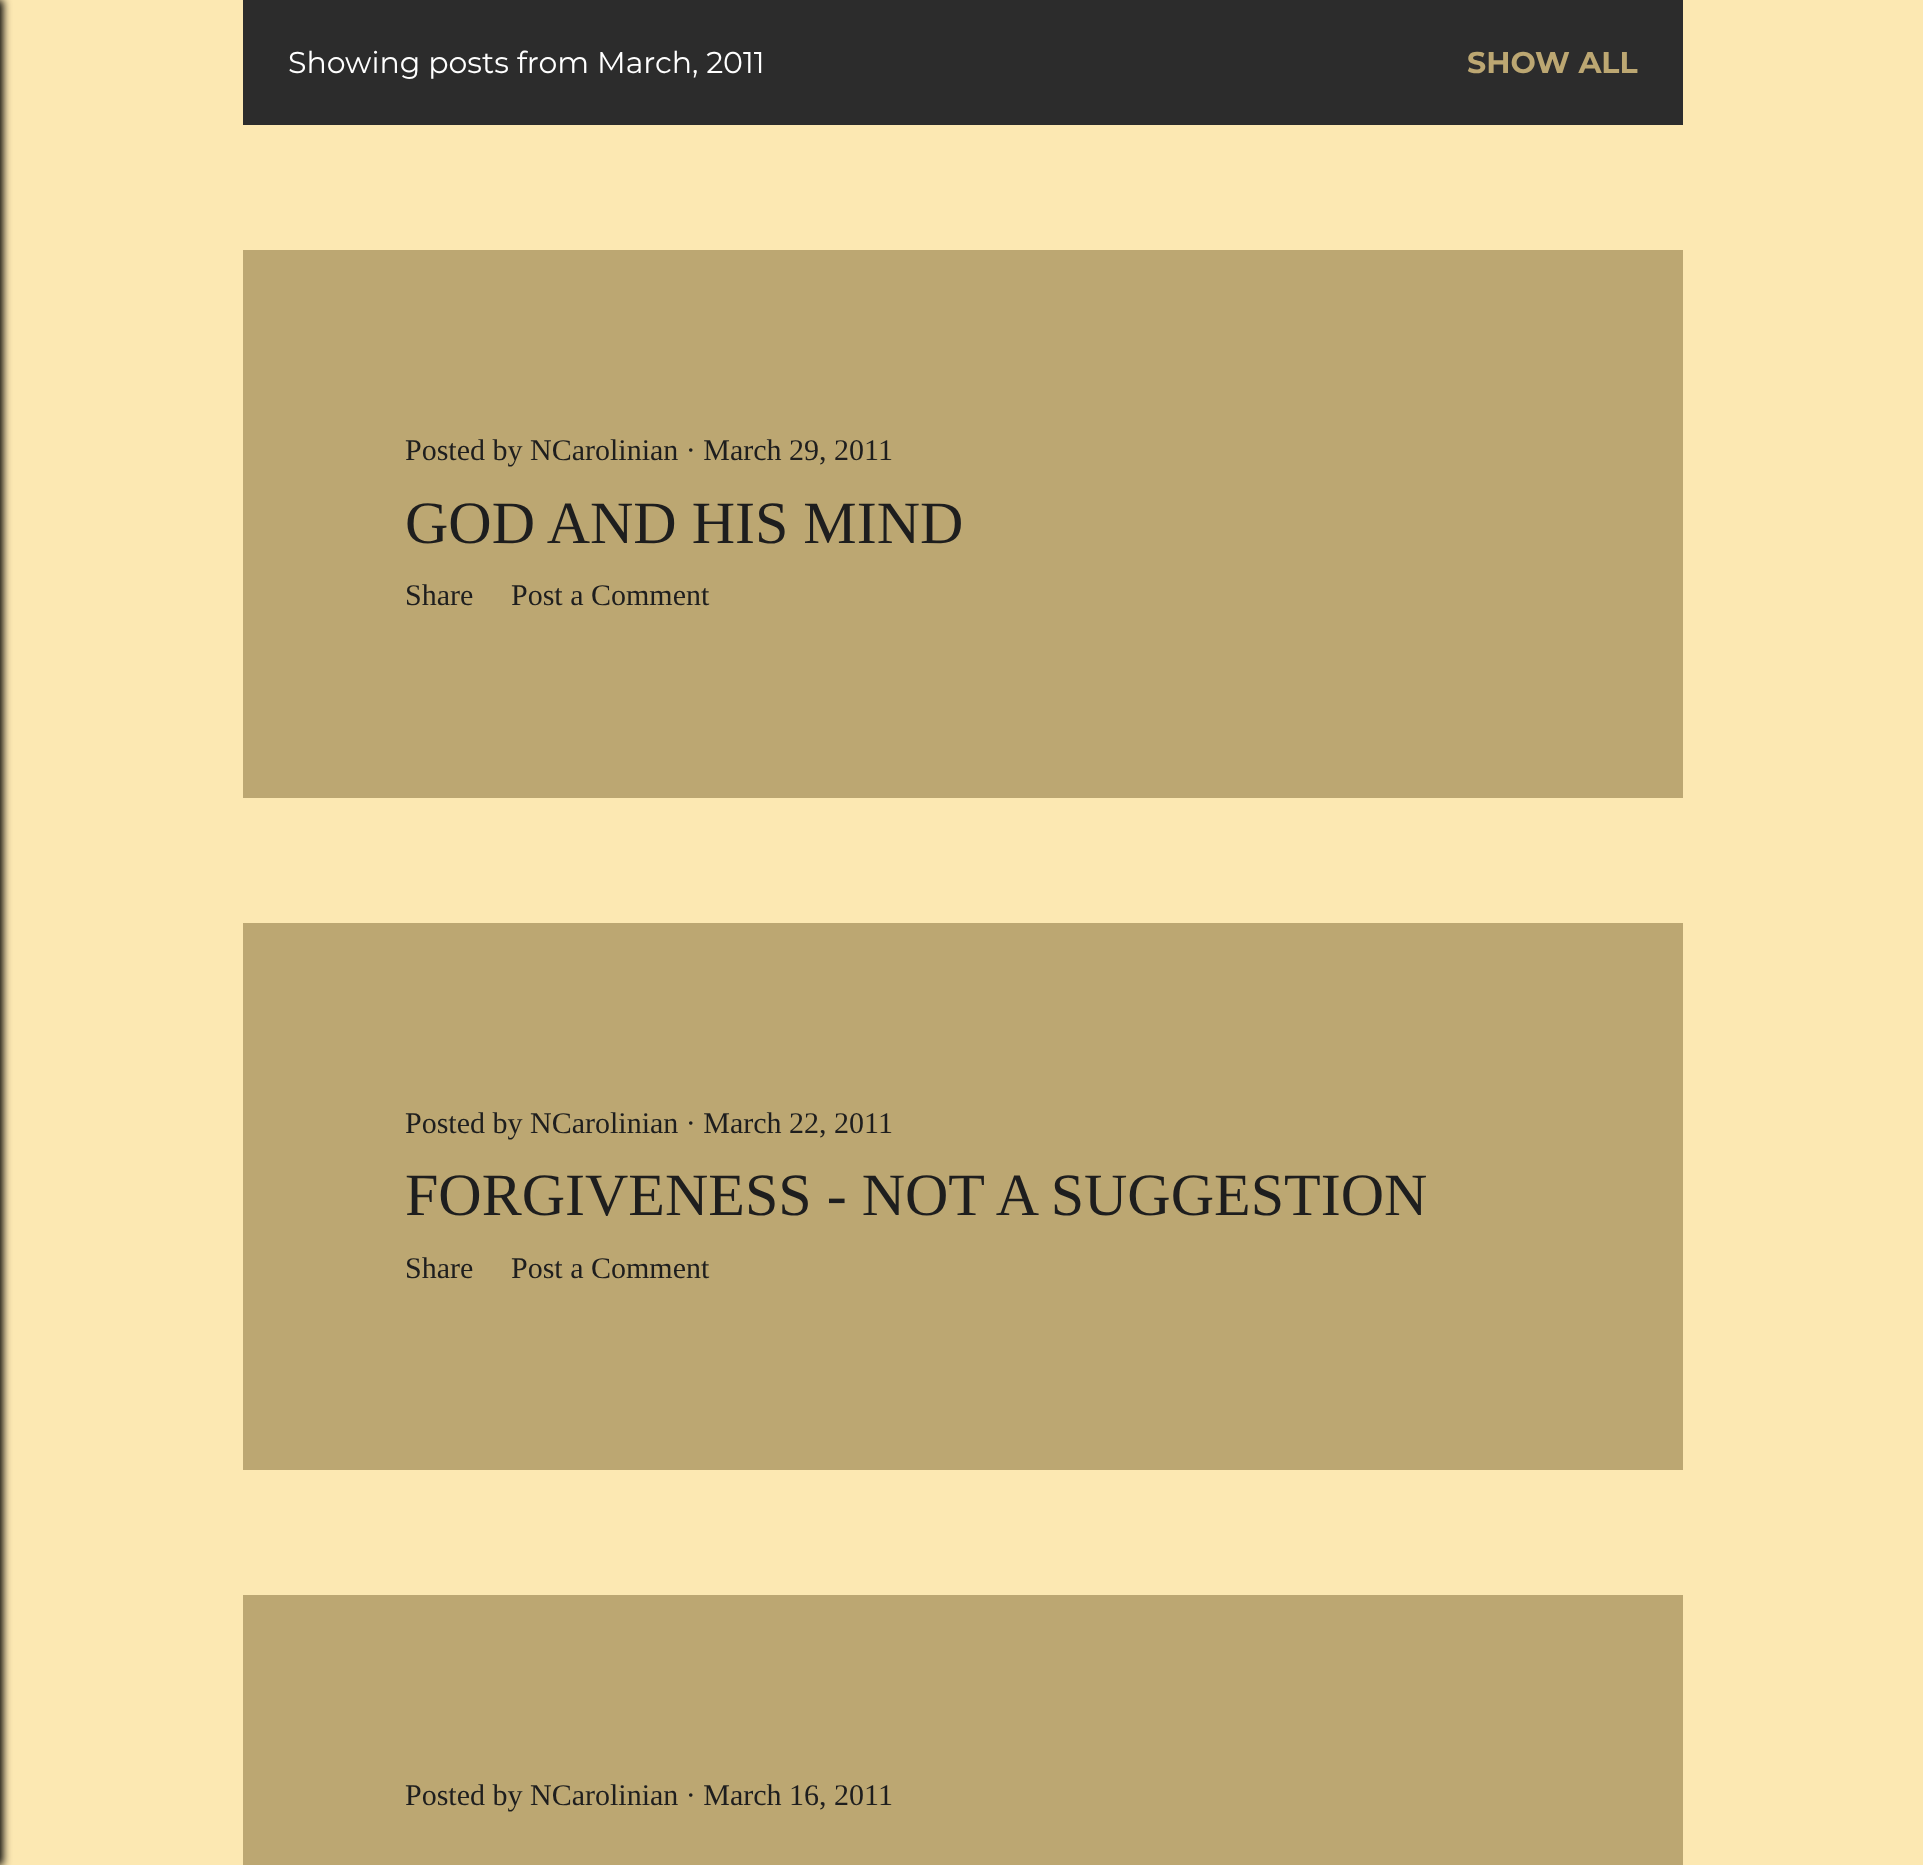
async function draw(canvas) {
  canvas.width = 1923
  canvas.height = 1865
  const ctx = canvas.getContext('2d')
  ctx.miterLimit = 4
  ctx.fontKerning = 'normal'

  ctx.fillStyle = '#fce8b2'
  ctx.fillRect(0, 0, 1923, 1865)
  ctx.fillStyle = '#000'
  ctx.filter = 'blur(4px)'
  ctx.beginPath()
  ctx.rect(-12, 0, 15, 1865)
  ctx.fill()
  ctx.filter = 'none'
  ctx.fillStyle = '#2c2c2c'
  ctx.fillRect(243, 0, 1440, 125)
  ctx.font = '30px Montserrat'
  ctx.fillStyle = '#fff'
  ctx.fillText('Showing posts from March, 2011', 288, 73)
  ctx.font = 'bold 30px Montserrat'
  ctx.fillStyle = '#bca772'
  ctx.fillText('SHOW ALL', 1467, 73)
  ctx.fillRect(243, 250, 1440, 548)
  ctx.font = '30px Liberation Serif'
  ctx.fillStyle = '#1e1e1e'
  ctx.fillText('Posted by NCarolinian · March 29, 2011', 405, 460)
  ctx.font = '60px Liberation Serif'
  ctx.fillText('GOD AND HIS MIND', 405, 543)
  ctx.font = '30px Liberation Serif'
  ctx.fillText('Share', 405, 605)
  ctx.fillText('Post a Comment', 511, 605)
  ctx.fillStyle = '#bca772'
  ctx.fillRect(243, 923, 1440, 547)
  ctx.fillStyle = '#1e1e1e'
  ctx.fillText('Posted by NCarolinian · March 22, 2011', 405, 1133)
  ctx.font = '60px Liberation Serif'
  ctx.fillText('FORGIVENESS - NOT A SUGGESTION', 405, 1215)
  ctx.font = '30px Liberation Serif'
  ctx.fillText('Share', 405, 1278)
  ctx.fillText('Post a Comment', 511, 1278)
  ctx.fillStyle = '#bca772'
  ctx.fillRect(243, 1595, 1440, 270)
  ctx.fillStyle = '#1e1e1e'
  ctx.fillText('Posted by NCarolinian · March 16, 2011', 405, 1805)
}

draw(document.querySelector('canvas'))
